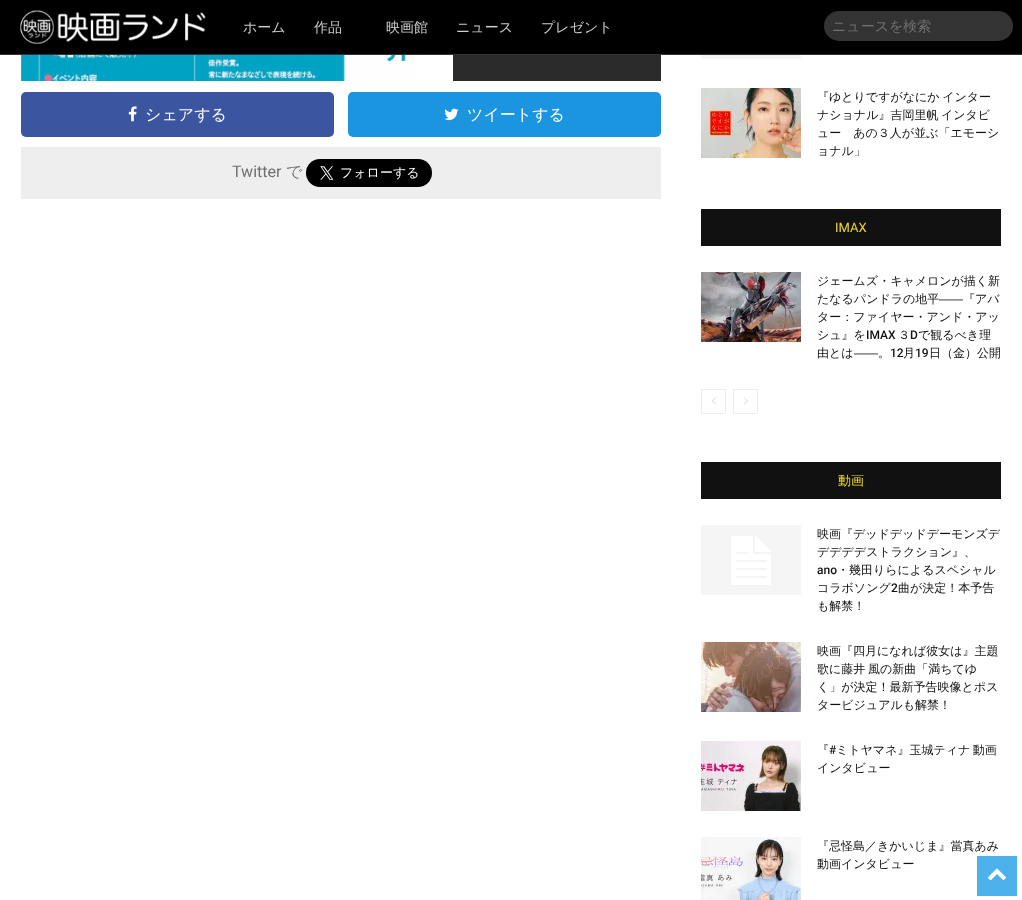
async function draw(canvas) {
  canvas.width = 1022
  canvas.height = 900
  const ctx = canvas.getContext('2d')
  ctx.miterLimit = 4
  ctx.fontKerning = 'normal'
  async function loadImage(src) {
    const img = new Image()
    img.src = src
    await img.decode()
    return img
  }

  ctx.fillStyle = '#fff'
  ctx.fillRect(0, 0, 1022, 900)
  ctx.fillStyle = '#000'
  ctx.fillRect(0, 0, 1022, 54)
  ctx.fillStyle = '#333'
  ctx.fillRect(0, 54, 1022, 1)
  ctx.drawImage(await loadImage('image0.png'), 20, 10, 186, 34)
  ctx.font = '500 14px WenQuanYi Zen Hei'
  ctx.fillStyle = '#ccc'
  ctx.fillText('ホーム', 243, 32)
  ctx.fillText('作品', 314, 32)
  ctx.fillText('映画館', 386, 32)
  ctx.fillText('ニュース', 456, 32)
  ctx.fillText('プレゼント', 541, 32)
  ctx.fillStyle = '#333'
  ctx.beginPath()
  ctx.roundRect(824, 11, 189, 30, 15)
  ctx.fill()
  ctx.fillStyle = '#707070'
  ctx.fillText('ニュースを検索', 832, 31)
  ctx.drawImage(await loadImage('image1.png'), 21, 55, 393, 26)
  ctx.fillStyle = '#2b2b2b'
  ctx.fillRect(453, 55, 208, 26)
  ctx.fillStyle = '#3b55a0'
  ctx.beginPath()
  ctx.roundRect(21, 92, 313, 45, 5)
  ctx.fill()
  ctx.drawImage(await loadImage('image2.png'), 128, 106, 9, 16)
  ctx.font = '500 16px WenQuanYi Zen Hei'
  ctx.fillStyle = '#fff'
  ctx.fillText('シェアする', 145, 120)
  ctx.fillStyle = '#1b95e0'
  ctx.beginPath()
  ctx.roundRect(348, 92, 313, 45, 5)
  ctx.fill()
  ctx.drawImage(await loadImage('image3.png'), 444, 108, 15, 13)
  ctx.fillStyle = '#fff'
  ctx.fillText('ツイートする', 467, 120)
  ctx.fillStyle = '#eee'
  ctx.fillRect(21, 147, 640, 52)
  ctx.font = '16px Roboto'
  ctx.fillStyle = '#707070'
  ctx.fillText('Twitter', 232, 177)
  ctx.font = '500 16px WenQuanYi Zen Hei'
  ctx.fillText('で', 286, 177)
  ctx.drawImage(await loadImage('image4.png'), 306, 159, 126, 28)
  ctx.drawImage(await loadImage('image5.png'), 701, 55, 100, 4)
  ctx.drawImage(await loadImage('image6.png'), 701, 88, 100, 70)
  ctx.wordSpacing = '-1px'
  ctx.font = '500 12px WenQuanYi Zen Hei'
  ctx.fillStyle = '#111'
  ctx.fillText('『ゆとりですがなにか インター', 817, 101)
  ctx.fillText('ナショナル』吉岡里帆 インタビ', 817, 119)
  ctx.wordSpacing = '0px'
  ctx.fillText('ュー　あの３人が並ぶ「エモーシ', 817, 137)
  ctx.fillText('ョナル」', 817, 155)
  ctx.fillRect(701, 209, 300, 37)
  ctx.font = '13px Roboto'
  ctx.fillStyle = '#f2d921'
  ctx.fillText('IMAX', 835, 232)
  ctx.drawImage(await loadImage('image7.png'), 701, 272, 100, 70)
  ctx.font = '500 12px WenQuanYi Zen Hei'
  ctx.fillStyle = '#111'
  ctx.fillText('ジェームズ・キャメロンが描く新', 817, 285)
  ctx.fillText('たなるパンドラの地平', 817, 303)
  ctx.font = '12px Liberation Sans'
  ctx.fillText('――', 939, 303)
  ctx.font = '500 12px WenQuanYi Zen Hei'
  ctx.fillText('『アバ', 963, 303)
  ctx.fillText('ター：ファイヤー・アンド・アッ', 817, 321)
  ctx.fillText('シュ』を', 817, 339)
  ctx.font = '500 12px Roboto'
  ctx.fillText('IMAX', 866, 339)
  ctx.font = '500 12px WenQuanYi Zen Hei'
  ctx.fillText('３', 898, 339)
  ctx.font = '500 12px Roboto'
  ctx.fillText('D', 910, 339)
  ctx.font = '500 12px WenQuanYi Zen Hei'
  ctx.fillText('で観るべき理', 918, 339)
  ctx.fillText('由とは', 817, 357)
  ctx.font = '12px Liberation Sans'
  ctx.fillText('――', 854, 357)
  ctx.font = '500 12px Roboto'
  ctx.fillText('12', 890, 357)
  ctx.font = '500 12px WenQuanYi Zen Hei'
  ctx.fillText('月', 903, 357)
  ctx.font = '500 12px Roboto'
  ctx.fillText('19', 915, 357)
  ctx.font = '500 12px WenQuanYi Zen Hei'
  ctx.fillText('日（金）公開', 929, 357)
  ctx.fillText('。', 878, 357)
  ctx.strokeStyle = '#eee'
  ctx.strokeRect(701.5, 389.5, 24, 24)
  ctx.drawImage(await loadImage('image8.png'), 711, 397, 5, 8)
  ctx.strokeRect(733.5, 389.5, 24, 24)
  ctx.drawImage(await loadImage('image9.png'), 744, 397, 5, 8)
  ctx.fillRect(701, 462, 300, 37)
  ctx.font = '500 13px WenQuanYi Zen Hei'
  ctx.fillStyle = '#f2d921'
  ctx.fillText('動画', 838, 485)
  ctx.drawImage(await loadImage('image10.png'), 701, 525, 100, 70)
  ctx.font = '500 12px WenQuanYi Zen Hei'
  ctx.fillStyle = '#111'
  ctx.fillText('映画『デッドデッドデーモンズデ', 817, 538)
  ctx.fillText('デデデデストラクション』、', 817, 556)
  ctx.font = '500 12px Roboto'
  ctx.fillText('ano', 817, 574)
  ctx.font = '500 12px WenQuanYi Zen Hei'
  ctx.fillText('・幾田りらによるスペシャル', 837, 574)
  ctx.fillText('コラボソング', 817, 592)
  ctx.font = '500 12px Roboto'
  ctx.fillText('2', 891, 592)
  ctx.font = '500 12px WenQuanYi Zen Hei'
  ctx.fillText('曲が決定！本予告', 898, 592)
  ctx.fillText('も解禁！', 817, 610)
  ctx.drawImage(await loadImage('image11.png'), 701, 642, 100, 70)
  ctx.fillText('映画『四月になれば彼女は』主題', 817, 655)
  ctx.wordSpacing = '-1px'
  ctx.fillText('歌に藤井 風の新曲「満ちてゆ', 817, 673)
  ctx.wordSpacing = '0px'
  ctx.fillText('く」が決定！最新予告映像とポス', 817, 691)
  ctx.fillText('タービジュアルも解禁！', 817, 709)
  ctx.drawImage(await loadImage('image12.png'), 701, 741, 100, 70)
  ctx.fillText('『', 817, 754)
  ctx.font = '500 12px Roboto'
  ctx.fillText('#', 829, 754)
  ctx.wordSpacing = '-1px'
  ctx.font = '500 12px WenQuanYi Zen Hei'
  ctx.fillText('ミトヤマネ』玉城ティナ 動画', 836, 754)
  ctx.wordSpacing = '0px'
  ctx.fillText('インタビュー', 817, 772)
  ctx.drawImage(await loadImage('image13.png'), 701, 837, 100, 63)
  ctx.fillText('『忌怪島／きかいじま』當真あみ', 817, 850)
  ctx.fillText('動画インタビュー', 817, 868)
  ctx.fillStyle = '#4db2ec'
  ctx.fillRect(977, 856, 40, 40)
  ctx.drawImage(await loadImage('image14.png'), 988, 868, 18, 13)
}

draw(document.querySelector('canvas'))
